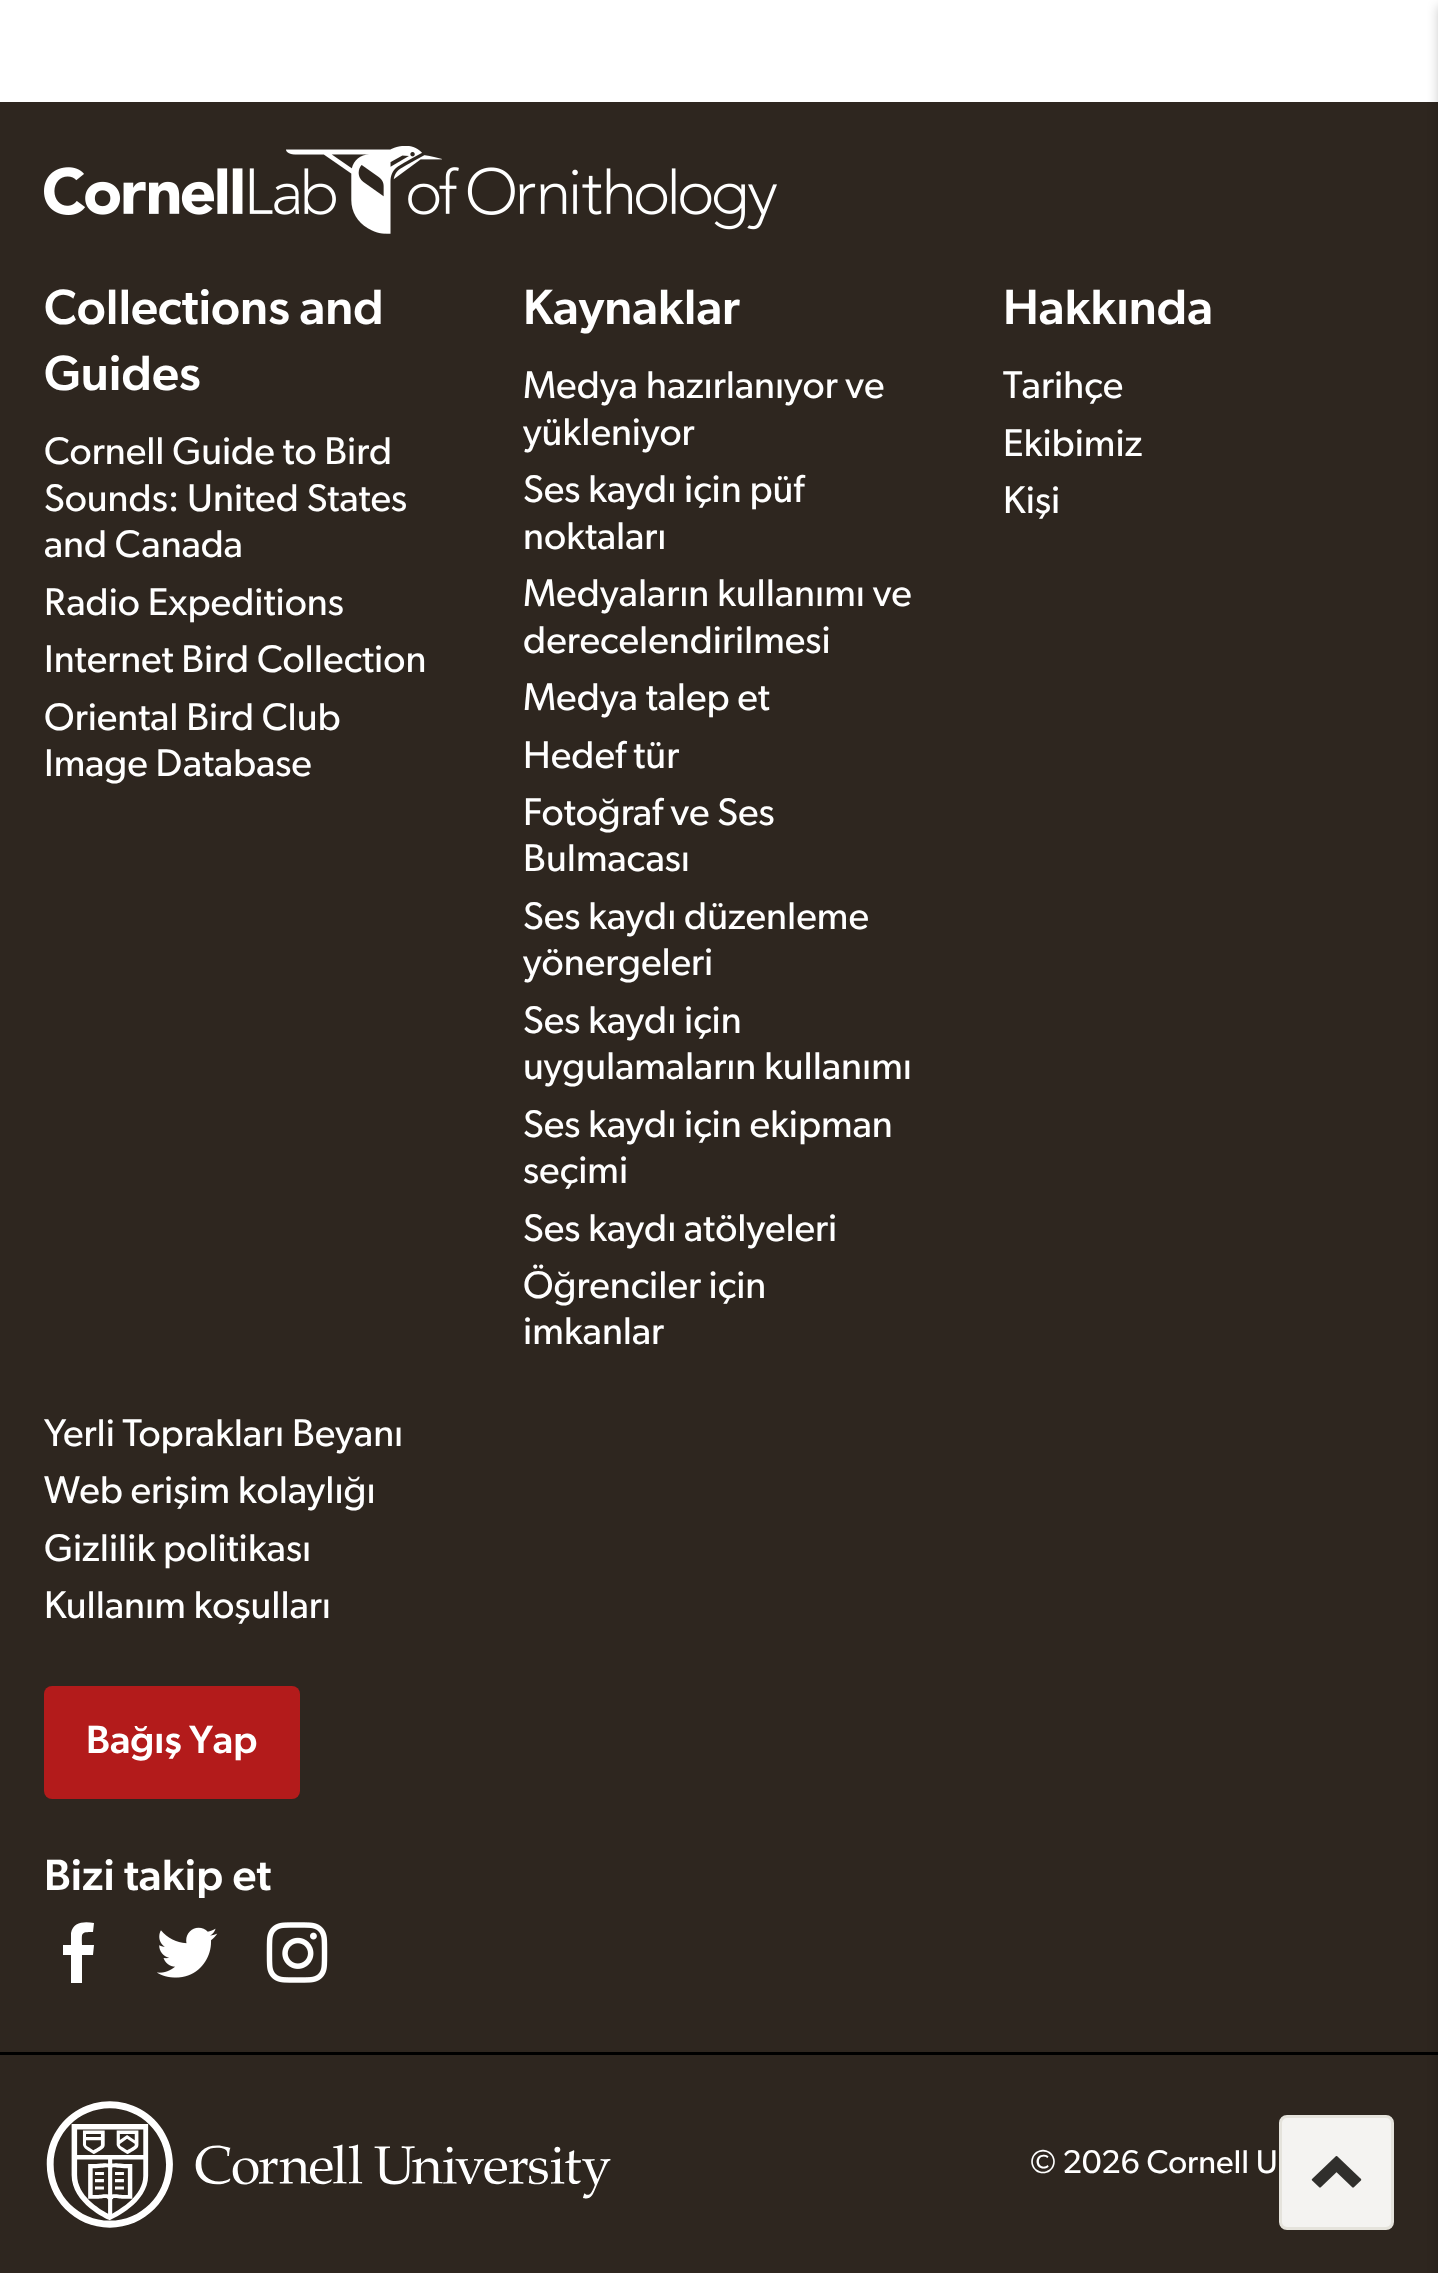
async function draw(canvas) {
  canvas.width = 1438
  canvas.height = 2273
  const ctx = canvas.getContext('2d')
  ctx.miterLimit = 4
  ctx.fontKerning = 'normal'
  async function loadImage(src) {
    const img = new Image()
    img.src = src
    await img.decode()
    return img
  }

  ctx.fillStyle = '#fff'
  ctx.fillRect(0, 0, 1438, 2273)
  ctx.fillStyle = '#2e261f'
  ctx.fillRect(0, 102, 1438, 2171)
  ctx.drawImage(await loadImage('image0.png'), 44, 146, 733, 88)
  ctx.font = '500 49.75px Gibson'
  ctx.fillStyle = '#fff'
  ctx.fillText('Collections and', 44, 324)
  ctx.fillText('Guides', 44, 390)
  ctx.font = '38.75px Gibson'
  ctx.fillText('Cornell Guide to Bird', 44, 464)
  ctx.fillText('Sounds: United States', 44, 511)
  ctx.fillText('and Canada', 44, 557)
  ctx.fillText('Radio Expeditions', 44, 615)
  ctx.fillText('Internet Bird Collection', 44, 672)
  ctx.fillText('Oriental Bird Club', 44, 730)
  ctx.fillText('Image Database', 44, 776)
  ctx.font = '500 49.75px Gibson'
  ctx.fillText('Kaynaklar', 523, 324)
  ctx.font = '38.75px Gibson'
  ctx.fillText('Medya hazırlanıyor ve', 523, 398)
  ctx.fillText('yükleniyor', 523, 445)
  ctx.fillText('Ses kaydı için püf', 523, 502)
  ctx.fillText('noktaları', 523, 549)
  ctx.fillText('Medyaların kullanımı ve', 523, 606)
  ctx.fillText('derecelendirilmesi', 523, 653)
  ctx.fillText('Medya talep et', 523, 710)
  ctx.fillText('Hedef tür', 523, 768)
  ctx.fillText('Fotoğraf ve Ses', 523, 825)
  ctx.fillText('Bulmacası', 523, 871)
  ctx.fillText('Ses kaydı düzenleme', 523, 929)
  ctx.fillText('yönergeleri', 523, 975)
  ctx.fillText('Ses kaydı için', 523, 1033)
  ctx.fillText('uygulamaların kullanımı', 523, 1079)
  ctx.fillText('Ses kaydı için ekipman', 523, 1137)
  ctx.fillText('seçimi', 523, 1183)
  ctx.fillText('Ses kaydı atölyeleri', 523, 1241)
  ctx.fillText('Öğrenciler için', 523, 1298)
  ctx.fillText('imkanlar', 523, 1344)
  ctx.font = '500 49.75px Gibson'
  ctx.fillText('Hakkında', 1003, 324)
  ctx.font = '38.75px Gibson'
  ctx.fillText('Tarihçe', 1003, 398)
  ctx.fillText('Ekibimiz', 1003, 456)
  ctx.fillText('Kişi', 1003, 513)
  ctx.fillText('Yerli Toprakları Beyanı', 44, 1446)
  ctx.fillText('Web erişim kolaylığı', 44, 1503)
  ctx.fillText('Gizlilik politikası', 44, 1561)
  ctx.fillText('Kullanım koşulları', 44, 1618)
  ctx.fillStyle = '#b31b1b'
  ctx.beginPath()
  ctx.roundRect(44, 1686, 256, 113, 8)
  ctx.fill()
  ctx.font = '500 39.5px Gibson'
  ctx.fillStyle = '#fff'
  ctx.fillText('Bağış Yap', 86, 1753)
  ctx.letterSpacing = '0.25px'
  ctx.font = '500 44px Gibson'
  ctx.fillText('Bizi takip et', 44, 1890)
  ctx.beginPath()
  ctx.moveTo(71, 1983)
  ctx.lineTo(71, 1955)
  ctx.lineTo(63, 1955)
  ctx.lineTo(63, 1945)
  ctx.lineTo(71, 1945)
  ctx.lineTo(71, 1933)
  ctx.bezierCurveTo(73, 1922, 84, 1921, 94, 1923)
  ctx.lineTo(93, 1932)
  ctx.bezierCurveTo(80, 1932, 82, 1933, 82, 1945)
  ctx.lineTo(94, 1945)
  ctx.lineTo(93, 1955)
  ctx.lineTo(82, 1955)
  ctx.lineTo(82, 1983)
  ctx.closePath()
  ctx.fill('evenodd')
  ctx.drawImage(await loadImage('image1.png'), 157, 1927, 61, 51)
  ctx.drawImage(await loadImage('image2.png'), 266, 1922, 62, 61)
  ctx.fillStyle = '#000'
  ctx.fillRect(0, 2052, 1438, 3)
  ctx.drawImage(await loadImage('image3.png'), 46, 2101, 565, 127)
  ctx.letterSpacing = '0px'
  ctx.font = '33px Gibson'
  ctx.fillStyle = '#fff'
  ctx.fillText('© 2026 Cornell U', 1030, 2173)
  ctx.fillStyle = '#00000033'
  ctx.filter = 'blur(5.5px)'
  ctx.beginPath()
  ctx.rect(1438, 6, 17, 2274)
  ctx.fill()
  ctx.filter = 'none'
  ctx.fillStyle = '#f4f3f1'
  ctx.beginPath()
  ctx.roundRect(1280.5, 2116.5, 112, 112, 6.5)
  ctx.fill()
  ctx.strokeStyle = '#e5e3dc'
  ctx.lineWidth = 3
  ctx.stroke()
  ctx.drawImage(await loadImage('image4.png'), 1311, 2156, 51, 32)
}

draw(document.querySelector('canvas'))
